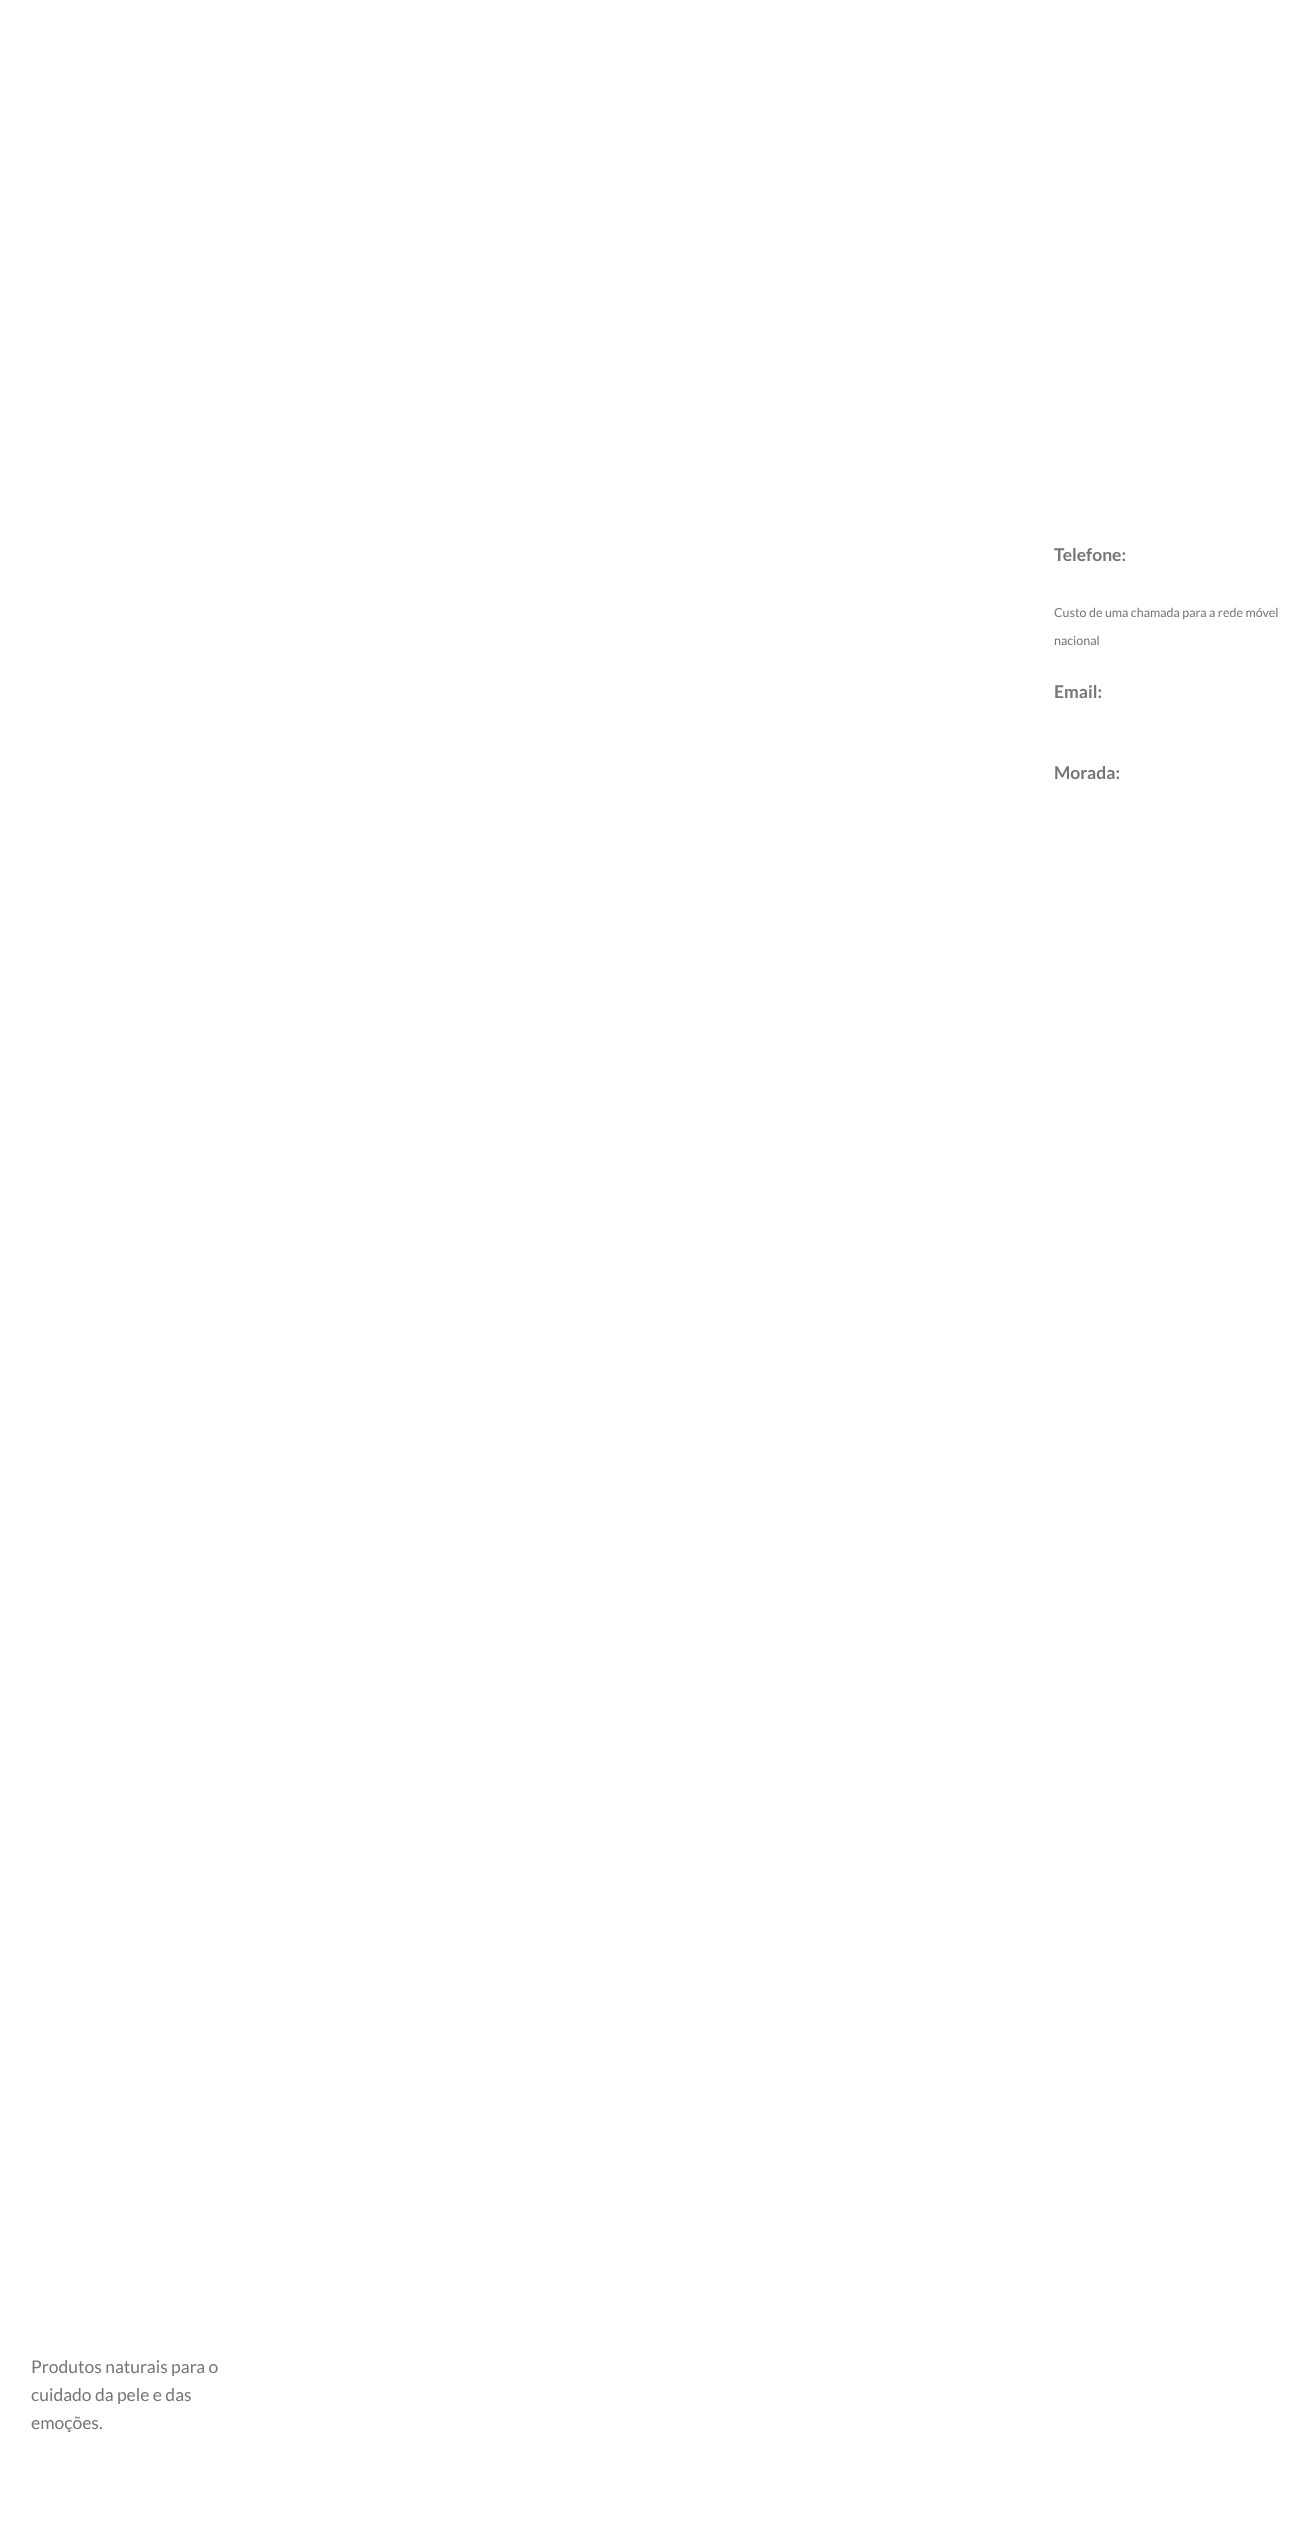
async function draw(canvas) {
  canvas.width = 1316
  canvas.height = 2532
  const ctx = canvas.getContext('2d')
  ctx.miterLimit = 4
  ctx.fontKerning = 'normal'

  ctx.fillStyle = '#fff'
  ctx.fillRect(0, 0, 1316, 2532)
  ctx.font = 'bold 17.5px Lato'
  ctx.fillStyle = '#767676'
  ctx.fillText('Telefone:', 1054, 561)
  ctx.font = '12.5px Lato'
  ctx.fillText('Custo de uma chamada para a rede móvel', 1054, 617)
  ctx.fillText('nacional', 1054, 645)
  ctx.font = 'bold 17.5px Lato'
  ctx.fillText('Email:', 1054, 698)
  ctx.fillText('Morada:', 1054, 779)
  ctx.font = '17.5px Lato'
  ctx.fillText('Produtos naturais para o', 31, 2373)
  ctx.fillText('cuidado da pele e das', 31, 2401)
  ctx.fillText('emoções.', 31, 2429)
}

draw(document.querySelector('canvas'))
